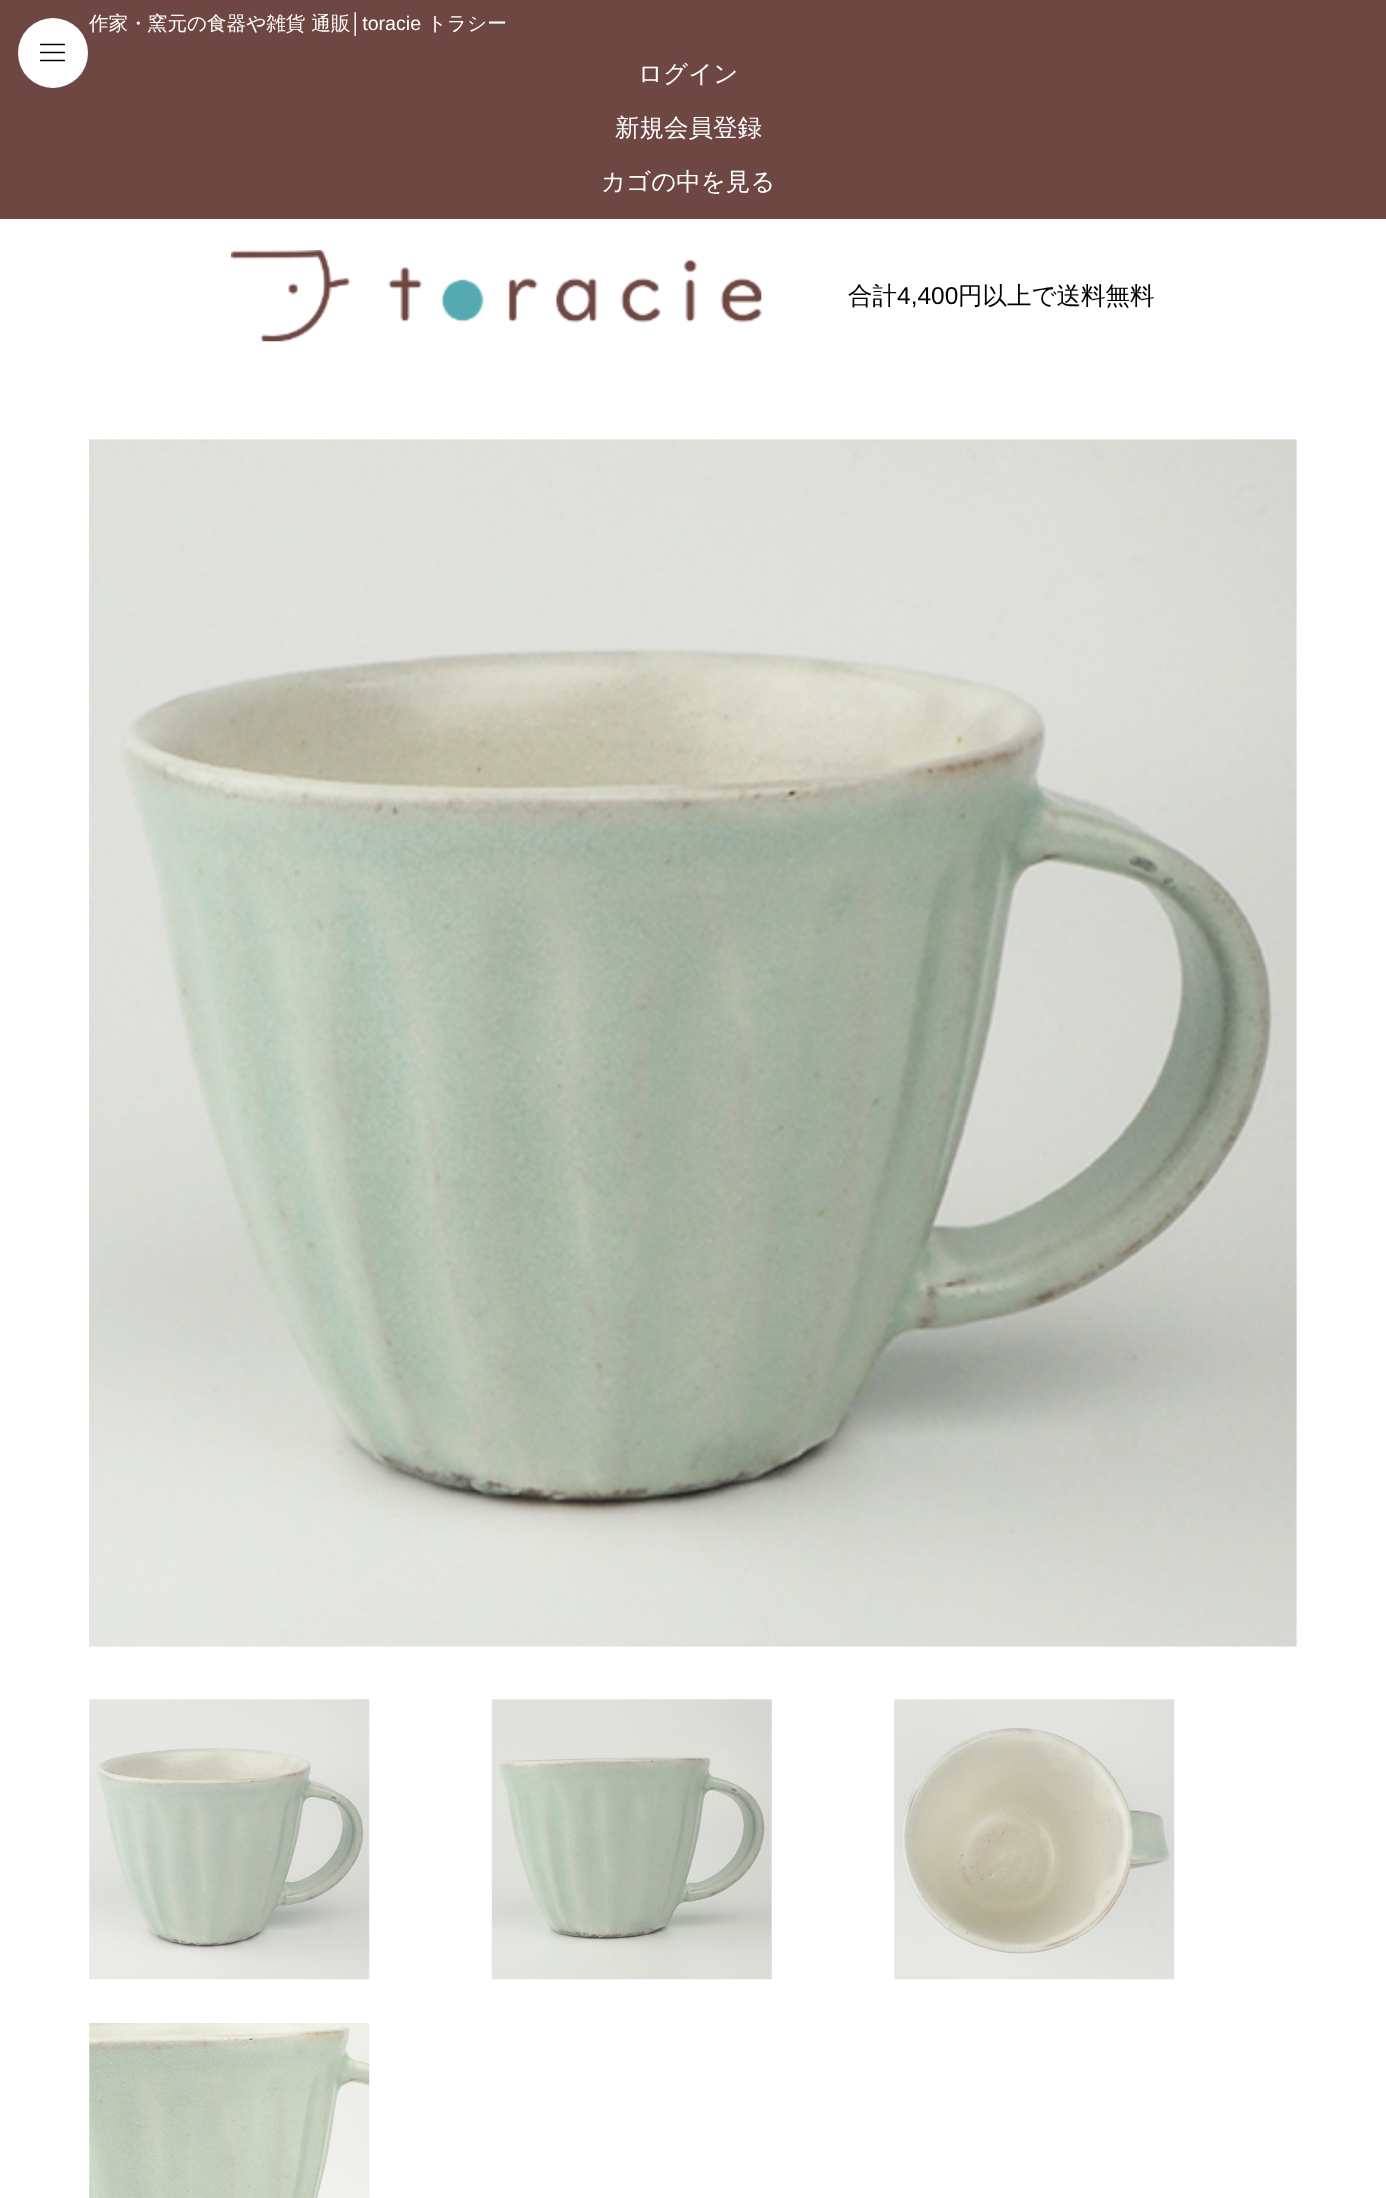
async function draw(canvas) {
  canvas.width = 1386
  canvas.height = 2198
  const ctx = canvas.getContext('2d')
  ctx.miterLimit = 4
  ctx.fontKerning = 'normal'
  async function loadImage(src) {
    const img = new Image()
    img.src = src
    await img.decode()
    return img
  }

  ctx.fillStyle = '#fff'
  ctx.fillRect(0, 0, 1386, 2198)
  ctx.fillStyle = '#6e4743'
  ctx.fillRect(0, 0, 1386, 219)
  ctx.fillStyle = '#fff'
  ctx.beginPath()
  ctx.arc(53, 53, 35, 0, 2 * Math.PI)
  ctx.fill()
  ctx.beginPath()
  ctx.moveTo(40.5, 52.5)
  ctx.lineTo(64.5, 52.5)
  ctx.moveTo(40.5, 44.5)
  ctx.lineTo(64.5, 44.5)
  ctx.moveTo(40.5, 60.5)
  ctx.lineTo(64.5, 60.5)
  ctx.strokeStyle = '#000'
  ctx.lineWidth = 1.3
  ctx.lineCap = 'round'
  ctx.lineJoin = 'round'
  ctx.stroke()
  ctx.font = '500 19.6px WenQuanYi Zen Hei'
  ctx.fillText('作家・窯元の食器や雑貨 通販', 89, 30)
  ctx.font = '19.6px Liberation Sans'
  ctx.fillText('│toracie', 350, 30)
  ctx.font = '500 19.6px WenQuanYi Zen Hei'
  ctx.fillText('トラシー', 427, 30)
  ctx.font = '500 24.5px WenQuanYi Zen Hei'
  ctx.fillText('ログイン', 638, 82)
  ctx.fillText('新規会員登録', 615, 136)
  ctx.fillText('カゴの中を見る', 601, 190)
  ctx.drawImage(await loadImage('image0.png'), 231, 250, 531, 92)
  ctx.fillStyle = '#000'
  ctx.fillText('合計', 848, 304)
  ctx.font = '24.5px Liberation Sans'
  ctx.fillText('4,400', 897, 304)
  ctx.font = '500 24.5px WenQuanYi Zen Hei'
  ctx.fillText('円以上で送料無料', 958, 304)
  ctx.drawImage(await loadImage('image1.png'), 89, 439, 1, 1208)
  ctx.drawImage(await loadImage('image2.png'), 89, 439, 1208, 1208)
  ctx.drawImage(await loadImage('image3.png'), 89, 1699, 281, 281)
  ctx.drawImage(await loadImage('image4.png'), 491, 1699, 281, 281)
  ctx.drawImage(await loadImage('image5.png'), 894, 1699, 281, 281)
  ctx.drawImage(await loadImage('image6.png'), 89, 2023, 281, 175)
}

draw(document.querySelector('canvas'))
